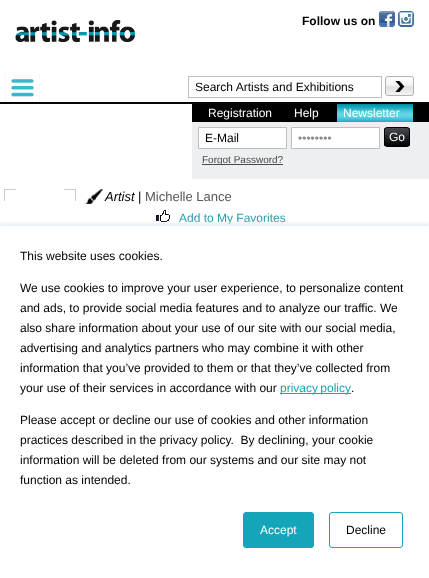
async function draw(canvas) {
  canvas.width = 429
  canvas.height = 578
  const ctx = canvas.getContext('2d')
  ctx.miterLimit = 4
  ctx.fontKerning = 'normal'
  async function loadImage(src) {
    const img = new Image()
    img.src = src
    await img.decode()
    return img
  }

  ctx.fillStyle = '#fff'
  ctx.fillRect(0, 0, 429, 578)
  ctx.drawImage(await loadImage('image0.png'), 0, 102, 429, 2)
  ctx.drawImage(await loadImage('image1.png'), 15, 20, 120, 22)
  ctx.font = 'bold 12px Liberation Sans'
  ctx.fillStyle = '#000'
  ctx.fillText('Follow us on', 302, 25)
  ctx.drawImage(await loadImage('image2.png'), 379, 11, 16, 16)
  ctx.drawImage(await loadImage('image3.png'), 398, 11, 16, 16)
  ctx.drawImage(await loadImage('image4.png'), 5, 71, 35, 31)
  ctx.strokeStyle = '#c2bdbd'
  ctx.strokeRect(188.5, 76.5, 193, 21)
  ctx.font = '12px Liberation Sans'
  ctx.fillText('Search Artists and Exhibitions', 195, 91)
  ctx.fillStyle = '#f4f4f4'
  ctx.beginPath()
  ctx.roundRect(385, 76, 29, 20, 3)
  ctx.fill()
  ctx.drawImage(await loadImage('image5.png'), 385, 77, 28, 17)
  ctx.beginPath()
  ctx.roundRect(385.5, 76.5, 28, 19, 2.5)
  ctx.strokeStyle = '#b3b3b3'
  ctx.stroke()
  ctx.fillStyle = '#eeeff1'
  ctx.fillRect(192, 122, 237, 57)
  ctx.fillStyle = '#000'
  ctx.fillRect(192, 104, 237, 18)
  ctx.fillStyle = '#fff'
  ctx.fillText('Registration', 208, 117)
  ctx.fillText('Help', 294, 117)
  ctx.drawImage(await loadImage('image6.png'), 337, 104, 76, 18)
  ctx.fillText('Newsletter', 343, 117)
  ctx.beginPath()
  ctx.rect(198.5, 127.5, 88, 21)
  ctx.fill()
  ctx.strokeStyle = '#c2bdbd'
  ctx.stroke()
  ctx.fillStyle = '#000'
  ctx.fillText('E-Mail', 205, 142)
  ctx.fillStyle = '#fff'
  ctx.beginPath()
  ctx.rect(291.5, 127.5, 88, 21)
  ctx.fill()
  ctx.stroke()
  ctx.fillStyle = '#8d8c8c'
  ctx.fillText('••••••••', 298, 142)
  ctx.drawImage(await loadImage('image7.png'), 384, 128, 26, 18)
  ctx.beginPath()
  ctx.roundRect(384.5, 127.5, 25, 19, 2.5)
  ctx.strokeStyle = '#000'
  ctx.stroke()
  ctx.fillStyle = '#fff'
  ctx.fillText('Go', 389, 141)
  ctx.fillStyle = '#4b4a4a'
  ctx.fillRect(202, 164, 81, 1)
  ctx.font = '10px Liberation Sans'
  ctx.fillText('Forgot Password?', 202, 163)
  ctx.drawImage(await loadImage('image8.png'), 4, 189, 72, 12)
  ctx.drawImage(await loadImage('image9.png'), 84, 189, 19, 15)
  ctx.font = 'italic 13px Liberation Sans'
  ctx.fillStyle = '#000'
  ctx.fillText('Artist', 105, 201)
  ctx.font = '13px Liberation Sans'
  ctx.fillText('|', 138, 201)
  ctx.fillStyle = '#575555'
  ctx.fillText('Michelle Lance', 145, 201)
  ctx.drawImage(await loadImage('image10.png'), 156, 210, 14, 12)
  ctx.font = '12px Liberation Sans'
  ctx.fillStyle = '#2d9bab'
  ctx.fillText('Add to My Favorites', 179, 222)
  ctx.fillStyle = '#eaf0f6'
  ctx.filter = 'blur(1.5px)'
  ctx.beginPath()
  ctx.rect(0, 223, 429, 352)
  ctx.fill()
  ctx.filter = 'none'
  ctx.fillStyle = '#fff'
  ctx.fillRect(0, 226, 429, 351)
  ctx.fillStyle = '#000'
  ctx.fillText('This website uses cookies.', 20, 260)
  ctx.fillText('We use cookies to improve your user experience, to personalize content', 20, 292)
  ctx.fillText('and ads, to provide social media features and to analyze our traffic. We', 20, 312)
  ctx.fillText('also share information about your use of our site with our social media,', 20, 332)
  ctx.fillText('advertising and analytics partners who may combine it with other', 20, 352)
  ctx.fillText('information that you’ve provided to them or that they’ve collected from', 20, 372)
  ctx.fillText('your use of their services in accordance with our', 20, 392)
  ctx.fillStyle = '#15a5ba'
  ctx.fillRect(280, 393, 71, 1)
  ctx.wordSpacing = '-1px'
  ctx.fillText('privacy policy', 280, 392)
  ctx.wordSpacing = '0px'
  ctx.fillStyle = '#000'
  ctx.fillText('.', 351, 392)
  ctx.fillText('Please accept or decline our use of cookies and other information', 20, 424)
  ctx.fillText('practices described in the privacy policy.  By declining, your cookie', 20, 444)
  ctx.fillText('information will be deleted from our systems and our site may not', 20, 464)
  ctx.fillText('function as intended.', 20, 484)
  ctx.fillStyle = '#15a5ba'
  ctx.beginPath()
  ctx.roundRect(243.5, 512.5, 70, 35, 2.5)
  ctx.fill()
  ctx.strokeStyle = '#15a5ba'
  ctx.stroke()
  ctx.fillStyle = '#fff'
  ctx.fillText('Accept', 260, 534)
  ctx.beginPath()
  ctx.roundRect(329.5, 512.5, 73, 35, 2.5)
  ctx.stroke()
  ctx.fillStyle = '#000'
  ctx.fillText('Decline', 346, 534)
}

draw(document.querySelector('canvas'))
